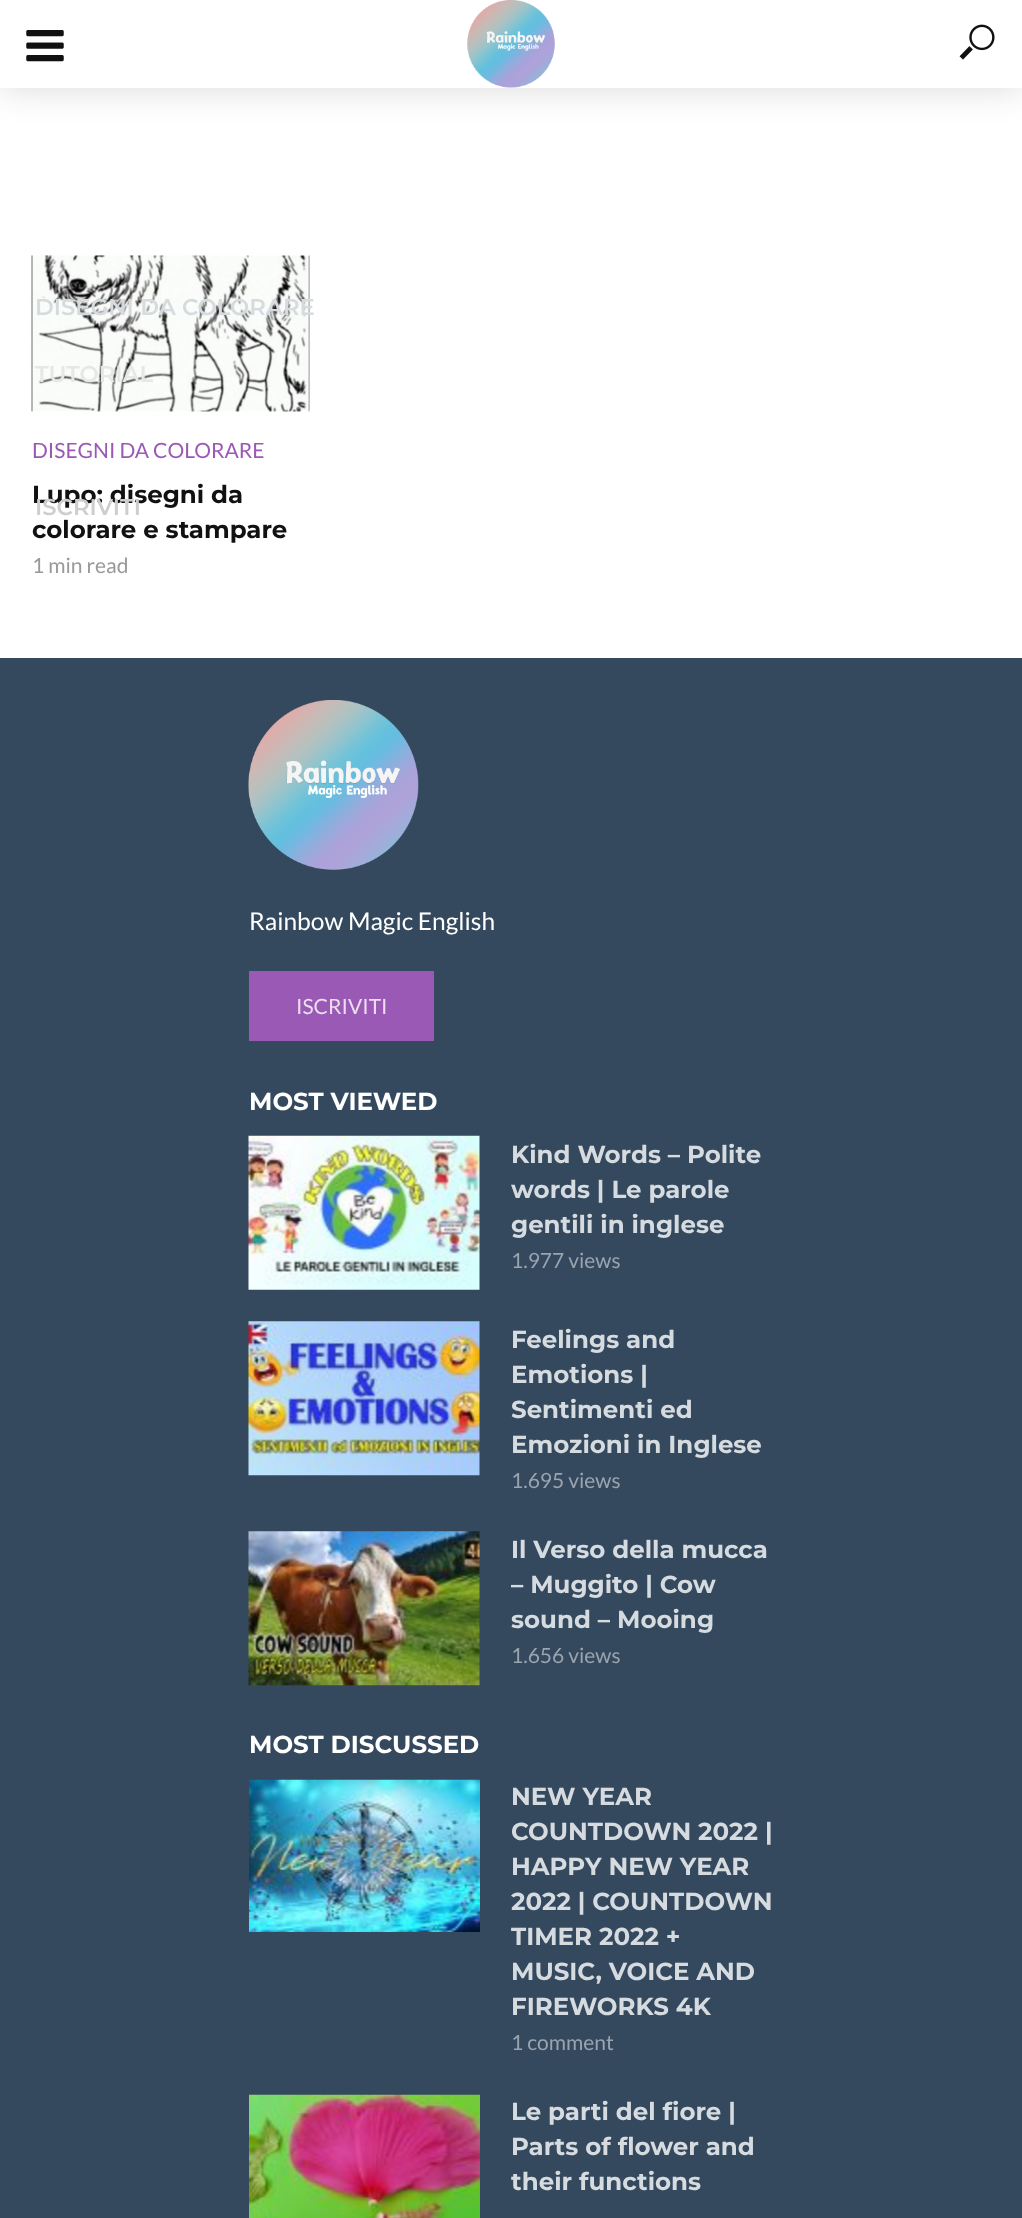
async function draw(canvas) {
  canvas.width = 1022
  canvas.height = 2218
  const ctx = canvas.getContext('2d')
  ctx.miterLimit = 4
  ctx.fontKerning = 'normal'
  async function loadImage(src) {
    const img = new Image()
    img.src = src
    await img.decode()
    return img
  }

  ctx.fillStyle = '#fff'
  ctx.fillRect(0, 0, 1022, 2218)
  ctx.fillStyle = '#00000026'
  ctx.filter = 'blur(17.5px)'
  ctx.beginPath()
  ctx.rect(0, 0, 1022, 88)
  ctx.fill()
  ctx.filter = 'none'
  ctx.fillStyle = '#fff'
  ctx.fillRect(0, 0, 1022, 88)
  ctx.drawImage(await loadImage('image0.png'), 467, 0, 88, 88)
  ctx.drawImage(await loadImage('image1.png'), 959, 24, 36, 36)
  ctx.drawImage(await loadImage('image2.png'), 26, 30, 38, 32)
  ctx.drawImage(await loadImage('image3.png'), 31, 255, 279, 157)
  ctx.font = '600 22.75px Montserrat'
  ctx.fillStyle = '#d6dbdf'
  ctx.fillText('DISEGNI DA COLORARE', 35, 315)
  ctx.fillStyle = '#e6e8e5'
  ctx.fillText('TUTORIAL', 35, 382)
  ctx.font = 'bold 24.5px Montserrat'
  ctx.fillStyle = '#111'
  ctx.fillText('Lupo: disegni da', 32, 503)
  ctx.font = '600 22.75px Montserrat'
  ctx.fillStyle = '#cecece'
  ctx.fillText('ISCRIVITI', 35, 515)
  ctx.font = '21px Lato'
  ctx.fillStyle = '#9b59b6'
  ctx.fillText('DISEGNI DA COLORARE', 32, 458)
  ctx.font = 'bold 24.5px Montserrat'
  ctx.fillStyle = '#111'
  ctx.fillText('colorare e stampare', 32, 538)
  ctx.font = '21px Lato'
  ctx.fillStyle = '#999'
  ctx.fillText('1 min read', 32, 573)
  ctx.fillStyle = '#34495e'
  ctx.fillRect(0, 658, 1022, 1560)
  ctx.drawImage(await loadImage('image4.png'), 248, 700, 171, 170)
  ctx.font = '24.5px Lato'
  ctx.fillStyle = '#fff'
  ctx.fillText('Rainbow Magic English', 249, 930)
  ctx.fillStyle = '#9b59b6'
  ctx.fillRect(249, 971, 185, 70)
  ctx.font = '21px Lato'
  ctx.fillStyle = '#ebdef0'
  ctx.fillText('ISCRIVITI', 296, 1014)
  ctx.font = 'bold 24.5px Montserrat'
  ctx.fillStyle = '#fff'
  ctx.fillText('MOST VIEWED', 249, 1110)
  ctx.drawImage(await loadImage('image5.png'), 248, 1135, 232, 155)
  ctx.fillStyle = '#d6dbdf'
  ctx.fillText('Kind Words – Polite', 511, 1163)
  ctx.fillText('words | Le parole', 511, 1198)
  ctx.fillText('gentili in inglese', 511, 1233)
  ctx.font = '21px Lato'
  ctx.fillStyle = '#9aa4af'
  ctx.fillText('1.977 views', 511, 1268)
  ctx.drawImage(await loadImage('image6.png'), 248, 1321, 232, 155)
  ctx.font = 'bold 24.5px Montserrat'
  ctx.fillStyle = '#d6dbdf'
  ctx.fillText('Feelings and', 511, 1348)
  ctx.fillText('Emotions |', 511, 1383)
  ctx.fillText('Sentimenti ed', 511, 1418)
  ctx.fillText('Emozioni in Inglese', 511, 1453)
  ctx.font = '21px Lato'
  ctx.fillStyle = '#9aa4af'
  ctx.fillText('1.695 views', 511, 1488)
  ctx.drawImage(await loadImage('image7.png'), 248, 1531, 232, 155)
  ctx.font = 'bold 24.5px Montserrat'
  ctx.fillStyle = '#d6dbdf'
  ctx.fillText('Il Verso della mucca', 511, 1558)
  ctx.fillText('– Muggito | Cow', 511, 1593)
  ctx.fillText('sound – Mooing', 511, 1628)
  ctx.font = '21px Lato'
  ctx.fillStyle = '#9aa4af'
  ctx.fillText('1.656 views', 511, 1663)
  ctx.font = 'bold 24.5px Montserrat'
  ctx.fillStyle = '#fff'
  ctx.fillText('MOST DISCUSSED', 249, 1753)
  ctx.drawImage(await loadImage('image8.png'), 249, 1779, 231, 153)
  ctx.fillStyle = '#d6dbdf'
  ctx.fillText('NEW YEAR', 511, 1805)
  ctx.fillText('COUNTDOWN 2022 |', 511, 1840)
  ctx.fillText('HAPPY NEW YEAR', 511, 1875)
  ctx.fillText('2022 | COUNTDOWN', 511, 1910)
  ctx.fillText('TIMER 2022 +', 511, 1945)
  ctx.fillText('MUSIC, VOICE AND', 511, 1980)
  ctx.fillText('FIREWORKS 4K', 511, 2015)
  ctx.font = '21px Lato'
  ctx.fillStyle = '#9aa4af'
  ctx.fillText('1 comment', 511, 2050)
  ctx.drawImage(await loadImage('image9.png'), 249, 2094, 231, 124)
  ctx.font = 'bold 24.5px Montserrat'
  ctx.fillStyle = '#d6dbdf'
  ctx.fillText('Le parti del fiore |', 511, 2120)
  ctx.fillText('Parts of flower and', 511, 2155)
  ctx.fillText('their functions', 511, 2190)
}

draw(document.querySelector('canvas'))
